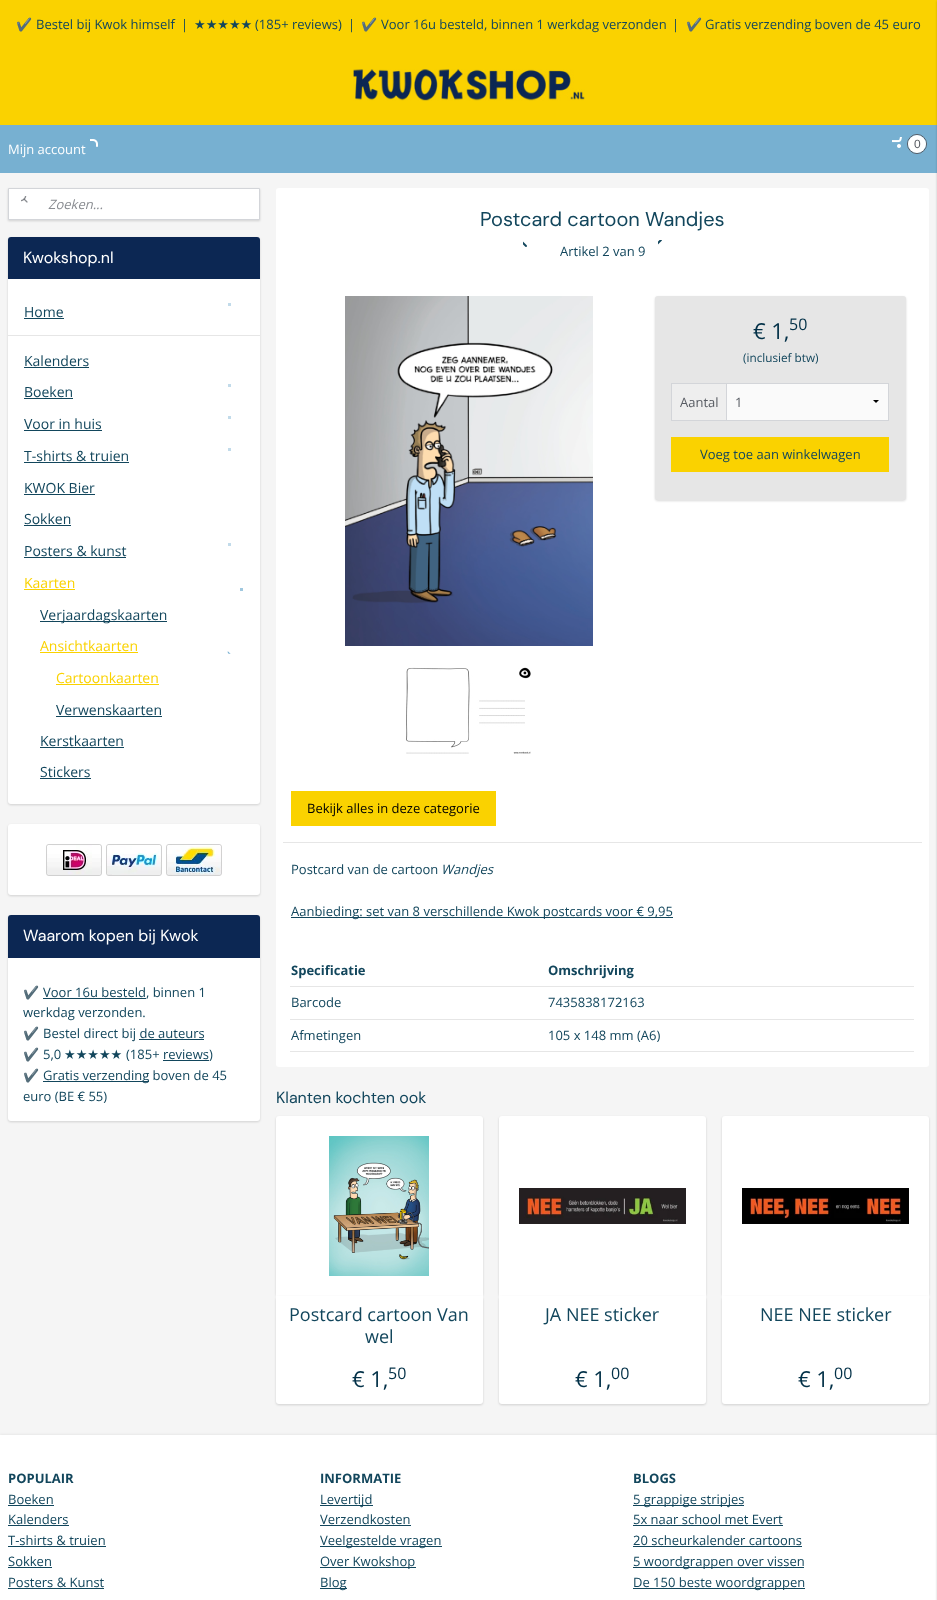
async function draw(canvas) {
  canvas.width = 937
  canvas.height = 1600
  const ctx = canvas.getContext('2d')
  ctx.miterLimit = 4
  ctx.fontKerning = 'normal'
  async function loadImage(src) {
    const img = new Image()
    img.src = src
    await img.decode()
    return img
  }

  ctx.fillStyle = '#f5f5f5'
  ctx.fillRect(0, 0, 937, 1600)
  ctx.fillStyle = '#fad200'
  ctx.fillRect(0, 0, 937, 125)
  ctx.font = '13px Noto Color Emoji'
  ctx.fillStyle = '#12465c'
  ctx.fillText('✔️', 16, 29)
  ctx.font = '13px Open Sans'
  ctx.fillText('Bestel bij Kwok himself', 36, 29)
  ctx.fillText('|', 181, 29)
  ctx.font = '13px DejaVu Sans'
  ctx.fillText('★★★★★', 194, 29)
  ctx.font = '13px Open Sans'
  ctx.fillText('(185+ reviews)', 255, 29)
  ctx.fillText('|', 348, 29)
  ctx.font = '13px Noto Color Emoji'
  ctx.fillText('✔️', 361, 29)
  ctx.font = '13px Open Sans'
  ctx.fillText('Voor 16u besteld, binnen 1 werkdag verzonden', 381, 29)
  ctx.fillText('|', 672, 29)
  ctx.font = '13px Noto Color Emoji'
  ctx.fillText('✔️', 686, 29)
  ctx.font = '13px Open Sans'
  ctx.fillText('Gratis verzending boven de 45 euro', 705, 29)
  ctx.drawImage(await loadImage('image0.png'), 353, 69, 232, 32)
  ctx.fillStyle = '#77b0d1'
  ctx.fillRect(0, 125, 937, 48)
  ctx.drawImage(await loadImage('image1.png'), 90, 139, 8, 8)
  ctx.fillStyle = '#fff'
  ctx.fillText('Mijn account', 8, 154)
  ctx.fillStyle = '#0000000d'
  ctx.filter = 'blur(1px)'
  ctx.beginPath()
  ctx.rect(0, 1434, 937, 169)
  ctx.fill()
  ctx.filter = 'none'
  ctx.fillStyle = '#fff'
  ctx.fillRect(0, 1435, 937, 165)
  ctx.fillStyle = '#00000033'
  ctx.filter = 'blur(1px)'
  ctx.beginPath()
  ctx.rect(937, 1, 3, 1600)
  ctx.fill()
  ctx.filter = 'none'
  ctx.drawImage(await loadImage('image2.png'), 892, 137, 10, 11)
  ctx.beginPath()
  ctx.arc(917, 144, 9.5, 0, 2 * Math.PI)
  ctx.strokeStyle = '#575b62'
  ctx.stroke()
  ctx.fillStyle = '#fff'
  ctx.beginPath()
  ctx.arc(917, 144, 9, 0, 2 * Math.PI)
  ctx.fill()
  ctx.font = '12px Liberation Sans'
  ctx.fillStyle = '#575b62'
  ctx.fillText('0', 914, 148)
  ctx.fillStyle = '#00000026'
  ctx.filter = 'blur(1px)'
  ctx.beginPath()
  ctx.rect(8, 189, 252, 32)
  ctx.fill()
  ctx.filter = 'none'
  ctx.fillStyle = '#fff'
  ctx.beginPath()
  ctx.rect(8.5, 188.5, 251, 31)
  ctx.fill()
  ctx.strokeStyle = '#d3d5d9'
  ctx.stroke()
  ctx.drawImage(await loadImage('image3.png'), 21, 196, 7, 7)
  ctx.font = 'italic 13px Open Sans'
  ctx.fillStyle = '#898c91'
  ctx.fillText('Zoeken...', 48, 209)
  ctx.fillStyle = '#00000026'
  ctx.filter = 'blur(1px)'
  ctx.beginPath()
  ctx.roundRect(8, 238, 252, 567, 3)
  ctx.fill()
  ctx.filter = 'none'
  ctx.fillStyle = '#fff'
  ctx.beginPath()
  ctx.roundRect(8, 237, 252, 567, 3)
  ctx.fill()
  ctx.fillStyle = '#0c2753'
  ctx.beginPath()
  ctx.roundRect(8, 237, 252, 42, [3, 3, 0, 0])
  ctx.fill()
  ctx.font = '16px DM Sans'
  ctx.fillStyle = '#fff'
  ctx.fillText('Kwokshop.nl', 23, 263)
  ctx.fillStyle = '#c2dbea'
  ctx.fillRect(228, 303, 3, 3)
  ctx.font = '14px Open Sans'
  ctx.fillStyle = '#12465c'
  ctx.fillText('Home', 24, 317)
  ctx.fillRect(24, 318, 40, 1)
  ctx.fillStyle = '#e6e6e6'
  ctx.fillRect(8, 335, 252, 1)
  ctx.fillStyle = '#12465c'
  ctx.fillText('Kalenders', 24, 366)
  ctx.fillRect(24, 367, 65, 1)
  ctx.fillStyle = '#c2dbea'
  ctx.fillRect(228, 384, 3, 3)
  ctx.fillStyle = '#12465c'
  ctx.fillText('Boeken', 24, 397)
  ctx.fillRect(24, 398, 49, 1)
  ctx.fillStyle = '#c2dbea'
  ctx.fillRect(228, 416, 3, 3)
  ctx.fillStyle = '#12465c'
  ctx.fillText('Voor in huis', 24, 429)
  ctx.fillRect(24, 430, 78, 1)
  ctx.fillStyle = '#c2dbea'
  ctx.fillRect(228, 448, 3, 3)
  ctx.fillStyle = '#12465c'
  ctx.fillText('T-shirts & truien', 24, 461)
  ctx.fillRect(24, 462, 105, 1)
  ctx.fillText('KWOK Bier', 24, 493)
  ctx.fillRect(24, 494, 71, 1)
  ctx.fillText('Sokken', 24, 524)
  ctx.fillRect(24, 525, 47, 1)
  ctx.fillStyle = '#c2dbea'
  ctx.fillRect(228, 543, 3, 3)
  ctx.fillStyle = '#12465c'
  ctx.fillText('Posters & kunst', 24, 556)
  ctx.fillRect(24, 557, 102, 1)
  ctx.fillStyle = '#fad200'
  ctx.fillText('Kaarten', 24, 588)
  ctx.fillRect(24, 589, 51, 1)
  ctx.fillStyle = '#a0c8df'
  ctx.fillRect(240, 588, 3, 3)
  ctx.fillStyle = '#12465c'
  ctx.fillRect(40, 621, 127, 1)
  ctx.fillText('Verjaardagskaarten', 40, 620)
  ctx.fillStyle = '#fad200'
  ctx.fillText('Ansichtkaarten', 40, 651)
  ctx.fillRect(40, 652, 98, 1)
  ctx.drawImage(await loadImage('image4.png'), 227, 651, 4, 3)
  ctx.fillText('Cartoonkaarten', 56, 683)
  ctx.fillRect(56, 684, 103, 1)
  ctx.fillStyle = '#12465c'
  ctx.fillText('Verwenskaarten', 56, 715)
  ctx.fillRect(56, 716, 106, 1)
  ctx.fillText('Kerstkaarten', 40, 746)
  ctx.fillRect(40, 747, 84, 1)
  ctx.fillText('Stickers', 40, 777)
  ctx.fillRect(40, 778, 51, 1)
  ctx.fillStyle = '#00000026'
  ctx.filter = 'blur(1px)'
  ctx.beginPath()
  ctx.roundRect(8, 825, 252, 71, 3)
  ctx.fill()
  ctx.filter = 'none'
  ctx.fillStyle = '#fff'
  ctx.beginPath()
  ctx.roundRect(8, 824, 252, 71, 3)
  ctx.fill()
  ctx.drawImage(await loadImage('image5.png'), 46, 844, 56, 32)
  ctx.drawImage(await loadImage('image6.png'), 106, 844, 56, 32)
  ctx.drawImage(await loadImage('image7.png'), 166, 844, 56, 32)
  ctx.fillStyle = '#00000026'
  ctx.filter = 'blur(1px)'
  ctx.beginPath()
  ctx.roundRect(8, 916, 252, 206, 3)
  ctx.fill()
  ctx.filter = 'none'
  ctx.fillStyle = '#fff'
  ctx.beginPath()
  ctx.roundRect(8, 915, 252, 206, 3)
  ctx.fill()
  ctx.fillStyle = '#0c2753'
  ctx.beginPath()
  ctx.roundRect(8, 915, 252, 43, [3, 3, 0, 0])
  ctx.fill()
  ctx.font = '16px DM Sans'
  ctx.fillStyle = '#fff'
  ctx.fillText('Waarom kopen bij Kwok', 23, 941)
  ctx.font = '13px Noto Color Emoji'
  ctx.fillStyle = '#12465c'
  ctx.fillText('✔️', 23, 997)
  ctx.fillRect(43, 998, 103, 1)
  ctx.font = '13px Open Sans'
  ctx.fillText('Voor 16u besteld, binnen 1', 43, 997)
  ctx.fillText('werkdag verzonden.', 23, 1017)
  ctx.font = '13px Noto Color Emoji'
  ctx.fillText('✔️', 23, 1038)
  ctx.font = '13px Open Sans'
  ctx.fillText('Bestel direct bij de auteurs', 43, 1038)
  ctx.fillRect(139, 1039, 65, 1)
  ctx.font = '13px "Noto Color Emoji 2"'
  ctx.fillText('✔️', 23, 1059)
  ctx.font = '13px Open Sans'
  ctx.fillText('5,0', 43, 1059)
  ctx.font = '13px DejaVu Sans'
  ctx.fillText('★★★★★', 64, 1059)
  ctx.font = '13px Open Sans'
  ctx.fillText('(185+ reviews)', 126, 1059)
  ctx.fillRect(163, 1060, 46, 1)
  ctx.font = '13px Noto Color Emoji'
  ctx.fillText('✔️', 23, 1080)
  ctx.fillRect(43, 1081, 106, 1)
  ctx.font = '13px Open Sans'
  ctx.fillText('Gratis verzending boven de 45', 43, 1080)
  ctx.fillText('euro (BE € 55)', 23, 1101)
  ctx.fillStyle = '#fff'
  ctx.beginPath()
  ctx.roundRect(276, 188, 653, 879, 3)
  ctx.fill()
  ctx.font = '20px DM Sans'
  ctx.fillStyle = '#12465c'
  ctx.fillText('Postcard cartoon Wandjes', 480, 226)
  ctx.drawImage(await loadImage('image8.png'), 523, 241, 4, 6)
  ctx.drawImage(await loadImage('image9.png'), 658, 240, 4, 5)
  ctx.font = '13px Open Sans'
  ctx.fillText('Artikel 2 van 9', 560, 256)
  ctx.drawImage(await loadImage('image10.png'), 345, 296, 248, 350)
  ctx.drawImage(await loadImage('image11.png'), 406, 667, 125, 87)
  ctx.fillStyle = '#00000026'
  ctx.filter = 'blur(1px)'
  ctx.beginPath()
  ctx.roundRect(655, 297, 251, 204, 3)
  ctx.fill()
  ctx.filter = 'none'
  ctx.fillStyle = '#e6e6e6'
  ctx.beginPath()
  ctx.roundRect(655, 296, 251, 204, 3)
  ctx.fill()
  ctx.font = '22px Open Sans'
  ctx.fillStyle = '#023047'
  ctx.fillText('€ 1,', 753, 339)
  ctx.font = '16px Open Sans'
  ctx.fillText('50', 789, 330)
  ctx.font = '11.75px Open Sans'
  ctx.fillStyle = '#12465c'
  ctx.fillText('(inclusief btw)', 743, 362)
  ctx.fillStyle = '#d3d5d9'
  ctx.fillRect(726, 383, 1, 37)
  ctx.fillRect(671, 383, 218, 1)
  ctx.fillRect(888, 383, 1, 38)
  ctx.fillRect(671, 420, 218, 1)
  ctx.fillRect(671, 383, 1, 38)
  ctx.fillStyle = '#eee'
  ctx.fillRect(672, 384, 54, 36)
  ctx.font = '13px Open Sans'
  ctx.fillStyle = '#575b62'
  ctx.fillText('Aantal', 680, 407)
  ctx.fillStyle = '#fafafa'
  ctx.fillRect(727, 384, 161, 36)
  ctx.fillStyle = '#000'
  ctx.beginPath()
  ctx.moveTo(879, 400)
  ctx.lineTo(876, 403)
  ctx.lineTo(873, 400)
  ctx.closePath()
  ctx.fill()
  ctx.fillStyle = '#575b62'
  ctx.fillText('1', 735, 407)
  ctx.fillStyle = '#fad200'
  ctx.fillRect(671, 437, 218, 35)
  ctx.fillStyle = '#12465c'
  ctx.fillText('Voeg toe aan winkelwagen', 700, 459)
  ctx.fillStyle = '#fad200'
  ctx.fillRect(291, 791, 205, 35)
  ctx.fillStyle = '#000'
  ctx.fillText('Bekijk alles in deze categorie', 307, 813)
  ctx.fillStyle = '#e6e6e6'
  ctx.fillRect(283, 842, 639, 1)
  ctx.fillStyle = '#12465c'
  ctx.fillText('Postcard van de cartoon', 291, 874)
  ctx.font = 'italic 13px Open Sans'
  ctx.fillText('Wandjes', 441, 874)
  ctx.fillRect(291, 917, 382, 1)
  ctx.font = '13px Open Sans'
  ctx.fillText('Aanbieding: set van 8 verschillende Kwok postcards voor € 9,95', 291, 916)
  ctx.font = 'bold 13px Open Sans'
  ctx.fillText('Specificatie', 291, 975)
  ctx.fillStyle = '#e6e6e6'
  ctx.fillRect(290, 986, 624, 1)
  ctx.fillStyle = '#12465c'
  ctx.fillText('Omschrijving', 548, 975)
  ctx.font = '13px Open Sans'
  ctx.fillText('Barcode', 291, 1007)
  ctx.fillStyle = '#e6e6e6'
  ctx.fillRect(290, 1019, 624, 1)
  ctx.fillStyle = '#12465c'
  ctx.fillText('7435838172163', 548, 1007)
  ctx.fillText('Afmetingen', 291, 1040)
  ctx.fillStyle = '#e6e6e6'
  ctx.fillRect(290, 1051, 624, 1)
  ctx.fillStyle = '#12465c'
  ctx.fillText('105 x 148 mm (A6)', 548, 1040)
  ctx.font = '16px DM Sans'
  ctx.fillText('Klanten kochten ook', 276, 1103)
  ctx.fillStyle = '#00000026'
  ctx.filter = 'blur(1px)'
  ctx.beginPath()
  ctx.roundRect(276, 1117, 207, 180, 3)
  ctx.fill()
  ctx.filter = 'none'
  ctx.fillStyle = '#fff'
  ctx.beginPath()
  ctx.roundRect(276, 1116, 207, 180, [3, 3, 0, 0])
  ctx.fill()
  ctx.drawImage(await loadImage('image12.png'), 329, 1136, 100, 140)
  ctx.fillStyle = '#00000026'
  ctx.filter = 'blur(1px)'
  ctx.beginPath()
  ctx.roundRect(276, 1297, 207, 108, 3)
  ctx.fill()
  ctx.filter = 'none'
  ctx.fillStyle = '#fff'
  ctx.beginPath()
  ctx.roundRect(276, 1296, 207, 108, [0, 0, 3, 3])
  ctx.fill()
  ctx.font = '18px Open Sans'
  ctx.fillStyle = '#12465c'
  ctx.fillText('Postcard cartoon Van', 289, 1321)
  ctx.fillText('wel', 365, 1343)
  ctx.font = '22px Open Sans'
  ctx.fillStyle = '#023047'
  ctx.fillText('€ 1,', 352, 1387)
  ctx.font = '16px Open Sans'
  ctx.fillText('50', 388, 1379)
  ctx.fillStyle = '#00000026'
  ctx.filter = 'blur(1px)'
  ctx.beginPath()
  ctx.roundRect(499, 1117, 207, 180, 3)
  ctx.fill()
  ctx.filter = 'none'
  ctx.fillStyle = '#fff'
  ctx.beginPath()
  ctx.roundRect(499, 1116, 207, 180, [3, 3, 0, 0])
  ctx.fill()
  ctx.drawImage(await loadImage('image13.png'), 519, 1188, 167, 36)
  ctx.fillStyle = '#00000026'
  ctx.filter = 'blur(1px)'
  ctx.beginPath()
  ctx.roundRect(499, 1297, 207, 108, 3)
  ctx.fill()
  ctx.filter = 'none'
  ctx.fillStyle = '#fff'
  ctx.beginPath()
  ctx.roundRect(499, 1296, 207, 108, [0, 0, 3, 3])
  ctx.fill()
  ctx.font = '18px Open Sans'
  ctx.fillStyle = '#12465c'
  ctx.fillText('JA NEE sticker', 545, 1321)
  ctx.font = '22px Open Sans'
  ctx.fillStyle = '#023047'
  ctx.fillText('€ 1,', 575, 1387)
  ctx.font = '16px Open Sans'
  ctx.fillText('00', 611, 1379)
  ctx.fillStyle = '#00000026'
  ctx.filter = 'blur(1px)'
  ctx.beginPath()
  ctx.roundRect(722, 1117, 207, 180, 3)
  ctx.fill()
  ctx.filter = 'none'
  ctx.fillStyle = '#fff'
  ctx.beginPath()
  ctx.roundRect(722, 1116, 207, 180, [3, 3, 0, 0])
  ctx.fill()
  ctx.drawImage(await loadImage('image14.png'), 742, 1188, 167, 36)
  ctx.fillStyle = '#00000026'
  ctx.filter = 'blur(1px)'
  ctx.beginPath()
  ctx.roundRect(722, 1297, 207, 108, 3)
  ctx.fill()
  ctx.filter = 'none'
  ctx.fillStyle = '#fff'
  ctx.beginPath()
  ctx.roundRect(722, 1296, 207, 108, [0, 0, 3, 3])
  ctx.fill()
  ctx.font = '18px Open Sans'
  ctx.fillStyle = '#12465c'
  ctx.fillText('NEE NEE sticker', 760, 1321)
  ctx.font = '22px Open Sans'
  ctx.fillStyle = '#023047'
  ctx.fillText('€ 1,', 798, 1387)
  ctx.font = '16px Open Sans'
  ctx.fillText('00', 834, 1379)
  ctx.font = 'bold 13px Open Sans'
  ctx.fillStyle = '#12465c'
  ctx.fillText('POPULAIR', 8, 1483)
  ctx.font = '13px Open Sans'
  ctx.fillText('Boeken', 8, 1504)
  ctx.fillRect(8, 1505, 46, 1)
  ctx.fillText('Kalenders', 8, 1524)
  ctx.fillRect(8, 1525, 61, 1)
  ctx.fillText('T-shirts & truien', 8, 1545)
  ctx.fillRect(8, 1546, 98, 1)
  ctx.fillText('Sokken', 8, 1566)
  ctx.fillRect(8, 1567, 44, 1)
  ctx.fillText('Posters & Kunst', 8, 1587)
  ctx.fillRect(8, 1588, 96, 1)
  ctx.font = 'bold 13px Open Sans'
  ctx.fillText('INFORMATIE', 320, 1483)
  ctx.fillRect(320, 1505, 53, 1)
  ctx.font = '13px Open Sans'
  ctx.fillText('Levertijd', 320, 1504)
  ctx.fillText('Verzendkosten', 320, 1524)
  ctx.fillRect(320, 1525, 91, 1)
  ctx.fillRect(320, 1546, 122, 1)
  ctx.fillText('Veelgestelde vragen', 320, 1545)
  ctx.fillRect(320, 1567, 96, 1)
  ctx.fillText('Over Kwokshop', 320, 1566)
  ctx.fillRect(320, 1588, 27, 1)
  ctx.fillText('Blog', 320, 1587)
  ctx.font = 'bold 13px Open Sans'
  ctx.fillText('BLOGS', 633, 1483)
  ctx.fillRect(633, 1505, 111, 1)
  ctx.font = '13px Open Sans'
  ctx.fillText('5 grappige stripjes', 633, 1504)
  ctx.fillText('5x naar school met Evert', 633, 1524)
  ctx.fillRect(633, 1525, 150, 1)
  ctx.fillText('20 scheurkalender cartoons', 633, 1545)
  ctx.fillRect(633, 1546, 169, 1)
  ctx.fillRect(633, 1567, 171, 1)
  ctx.fillText('5 woordgrappen over vissen', 633, 1566)
  ctx.fillRect(633, 1588, 172, 1)
  ctx.fillText('De 150 beste woordgrappen', 633, 1587)
}

draw(document.querySelector('canvas'))
